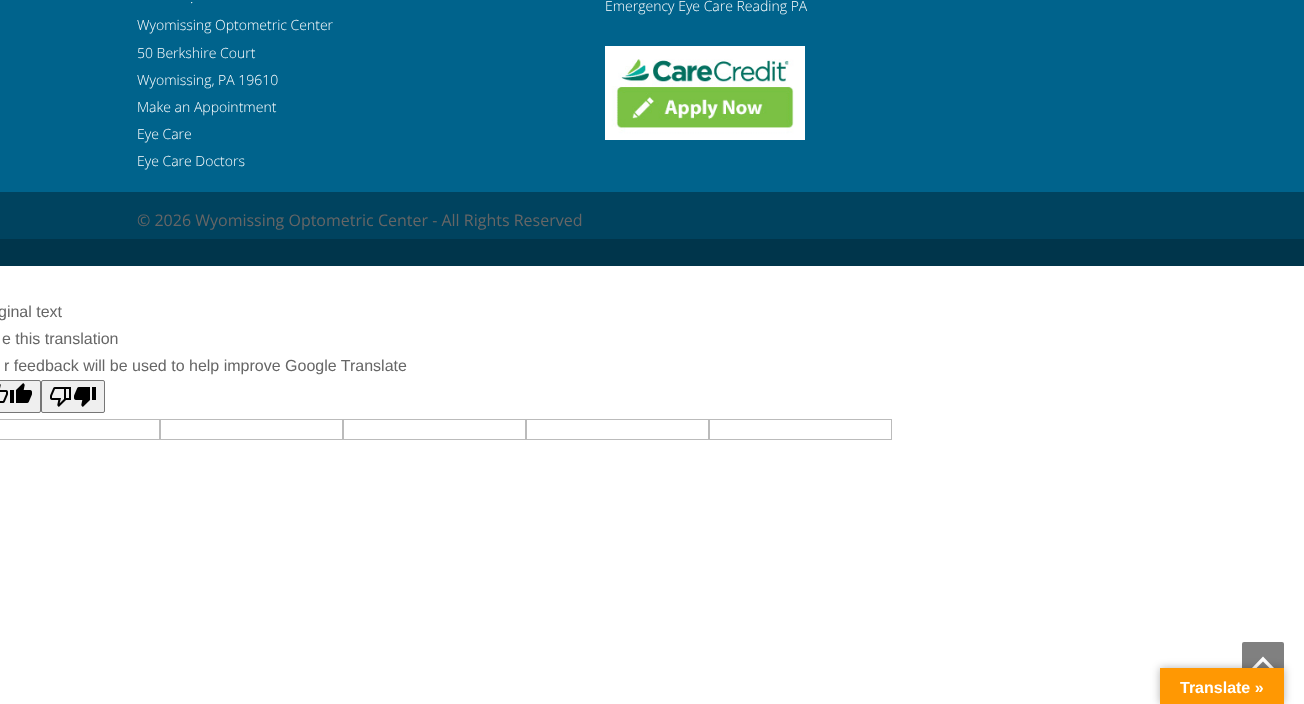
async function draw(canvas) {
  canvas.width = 1304
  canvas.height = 704
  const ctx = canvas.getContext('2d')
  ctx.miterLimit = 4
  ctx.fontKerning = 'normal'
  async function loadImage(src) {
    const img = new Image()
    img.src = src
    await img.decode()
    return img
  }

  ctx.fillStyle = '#fff'
  ctx.fillRect(0, 0, 1304, 704)
  ctx.fillStyle = '#00638c'
  ctx.fillRect(0, 0, 1304, 192)
  ctx.fillStyle = '#00354b'
  ctx.fillRect(0, 239, 1304, 27)
  ctx.font = '300 14px Open Sans'
  ctx.fillStyle = '#fff'
  ctx.fillText('.', 190, 3)
  ctx.fillText('Wyomissing Optometric Center', 137, 30)
  ctx.fillText('50 Berkshire Court', 137, 58)
  ctx.fillText('Wyomissing, PA 19610', 137, 85)
  ctx.fillText('Make an Appointment', 137, 112)
  ctx.fillText('Eye Care', 137, 139)
  ctx.fillText('Eye Care Doctors', 137, 166)
  ctx.fillText('Emergency Eye Care Reading PA', 605, 11)
  ctx.drawImage(await loadImage('image0.png'), 605, 46, 200, 94)
  ctx.fillStyle = '#00435f'
  ctx.fillRect(0, 192, 1304, 47)
  ctx.font = '16px Open Sans'
  ctx.fillStyle = '#666'
  ctx.fillText('© 2026 Wyomissing Optometric Center - All Rights Reserved', 137, 226)
  ctx.font = '16px Liberation Sans'
  ctx.fillText('ginal text', -2, 317)
  ctx.fillText('e this translation', 2, 344)
  ctx.fillText('r feedback will be used to help improve Google Translate', 4, 371)
  ctx.fillStyle = '#efefef'
  ctx.beginPath()
  ctx.roundRect(-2.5, 380.5, 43, 32, 1.5)
  ctx.fill()
  ctx.strokeStyle = '#767676'
  ctx.stroke()
  ctx.drawImage(await loadImage('image1.png'), 0, 384, 8, 19)
  ctx.drawImage(await loadImage('image2.png'), 10, 383, 22, 20)
  ctx.beginPath()
  ctx.roundRect(41.5, 380.5, 63, 32, 1.5)
  ctx.fill()
  ctx.stroke()
  ctx.drawImage(await loadImage('image3.png'), 50, 387, 21, 20)
  ctx.drawImage(await loadImage('image4.png'), 74, 387, 22, 20)
  ctx.strokeStyle = '#bbb'
  ctx.strokeRect(-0.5, 419.5, 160, 20)
  ctx.strokeRect(160.5, 419.5, 182, 20)
  ctx.strokeRect(343.5, 419.5, 182, 20)
  ctx.strokeRect(526.5, 419.5, 182, 20)
  ctx.strokeRect(709.5, 419.5, 182, 20)
  ctx.fillStyle = '#808080'
  ctx.beginPath()
  ctx.roundRect(1242, 642, 42, 42, 2)
  ctx.fill()
  ctx.fillStyle = '#fff'
  ctx.beginPath()
  ctx.moveTo(1271, 669.5)
  ctx.lineTo(1263, 661.5)
  ctx.lineTo(1255, 669.5)
  ctx.lineTo(1252, 668)
  ctx.lineTo(1263, 656.5)
  ctx.lineTo(1274, 668)
  ctx.closePath()
  ctx.fill()
  ctx.fillStyle = '#0000004d'
  ctx.filter = 'blur(4.5px)'
  ctx.beginPath()
  ctx.rect(1160, 668, 124, 36)
  ctx.fill()
  ctx.filter = 'none'
  ctx.fillStyle = '#ff9803'
  ctx.fillRect(1160, 668, 124, 36)
  ctx.font = 'bold 16px Liberation Sans'
  ctx.fillStyle = '#fff'
  ctx.fillText('Translate »', 1180, 693)
}

draw(document.querySelector('canvas'))
